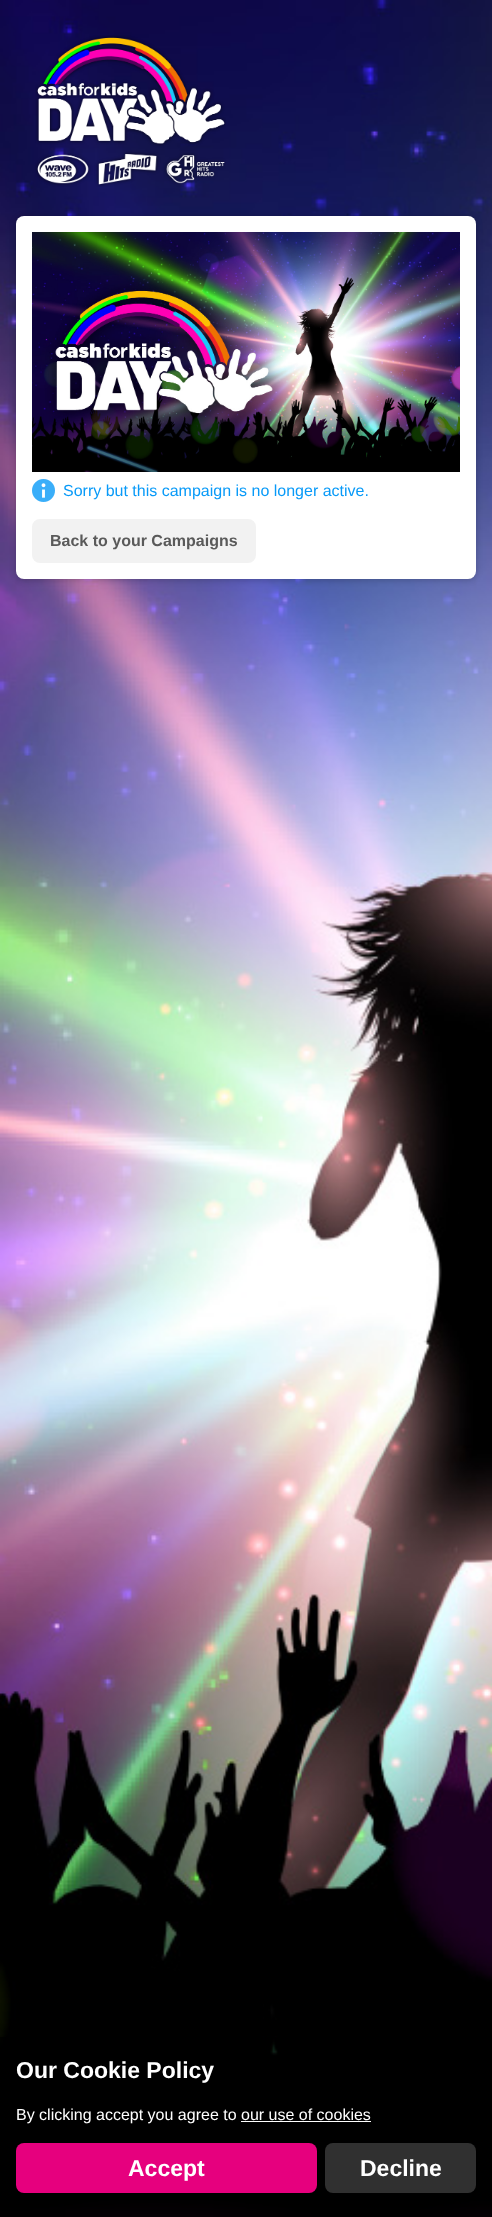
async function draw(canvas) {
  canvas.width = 492
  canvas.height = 2217
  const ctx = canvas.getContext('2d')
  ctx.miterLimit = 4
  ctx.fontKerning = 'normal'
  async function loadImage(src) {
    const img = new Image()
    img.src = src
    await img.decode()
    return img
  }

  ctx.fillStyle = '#fff'
  ctx.fillRect(0, 0, 492, 2217)
  ctx.drawImage(await loadImage('image0.png'), 0, 0, 492, 2217)
  ctx.drawImage(await loadImage('image1.png'), 35, 35, 191, 152)
  ctx.fillStyle = '#00000033'
  ctx.filter = 'blur(3px)'
  ctx.beginPath()
  ctx.roundRect(16, 217, 460, 363, 8)
  ctx.fill()
  ctx.filter = 'none'
  ctx.fillStyle = '#fff'
  ctx.beginPath()
  ctx.roundRect(16, 216, 460, 363, 8)
  ctx.fill()
  ctx.drawImage(await loadImage('image2.png'), 32, 232, 428, 240)
  ctx.drawImage(await loadImage('image3.png'), 32, 479, 23, 23)
  ctx.font = '16px Liberation Sans'
  ctx.fillStyle = '#089af8'
  ctx.fillText('Sorry but this campaign is no longer active.', 63, 496)
  ctx.fillStyle = '#f2f2f2'
  ctx.beginPath()
  ctx.roundRect(33, 520, 222, 42, 7)
  ctx.fill()
  ctx.strokeStyle = '#f2f2f2'
  ctx.lineWidth = 2
  ctx.stroke()
  ctx.font = 'bold 16px Liberation Sans'
  ctx.fillStyle = '#5a5a5a'
  ctx.fillText('Back to your Campaigns', 50, 546)
  ctx.fillStyle = '#000000b3'
  ctx.fillRect(0, 2037, 492, 180)
  ctx.font = 'bold 23px Liberation Sans'
  ctx.fillStyle = '#fff'
  ctx.fillText('Our Cookie Policy', 16, 2078)
  ctx.font = '16px Liberation Sans'
  ctx.fillText('By clicking accept you agree to our use of cookies', 16, 2120)
  ctx.fillRect(241, 2121, 130, 1)
  ctx.fillStyle = '#e6007e'
  ctx.beginPath()
  ctx.roundRect(16, 2143, 301, 50, 8)
  ctx.fill()
  ctx.font = 'bold 23px Liberation Sans'
  ctx.fillStyle = '#fff'
  ctx.fillText('Accept', 128, 2176)
  ctx.fillStyle = '#303030'
  ctx.beginPath()
  ctx.roundRect(325, 2143, 151, 50, 8)
  ctx.fill()
  ctx.fillStyle = '#fff'
  ctx.fillText('Decline', 360, 2176)
}

draw(document.querySelector('canvas'))
